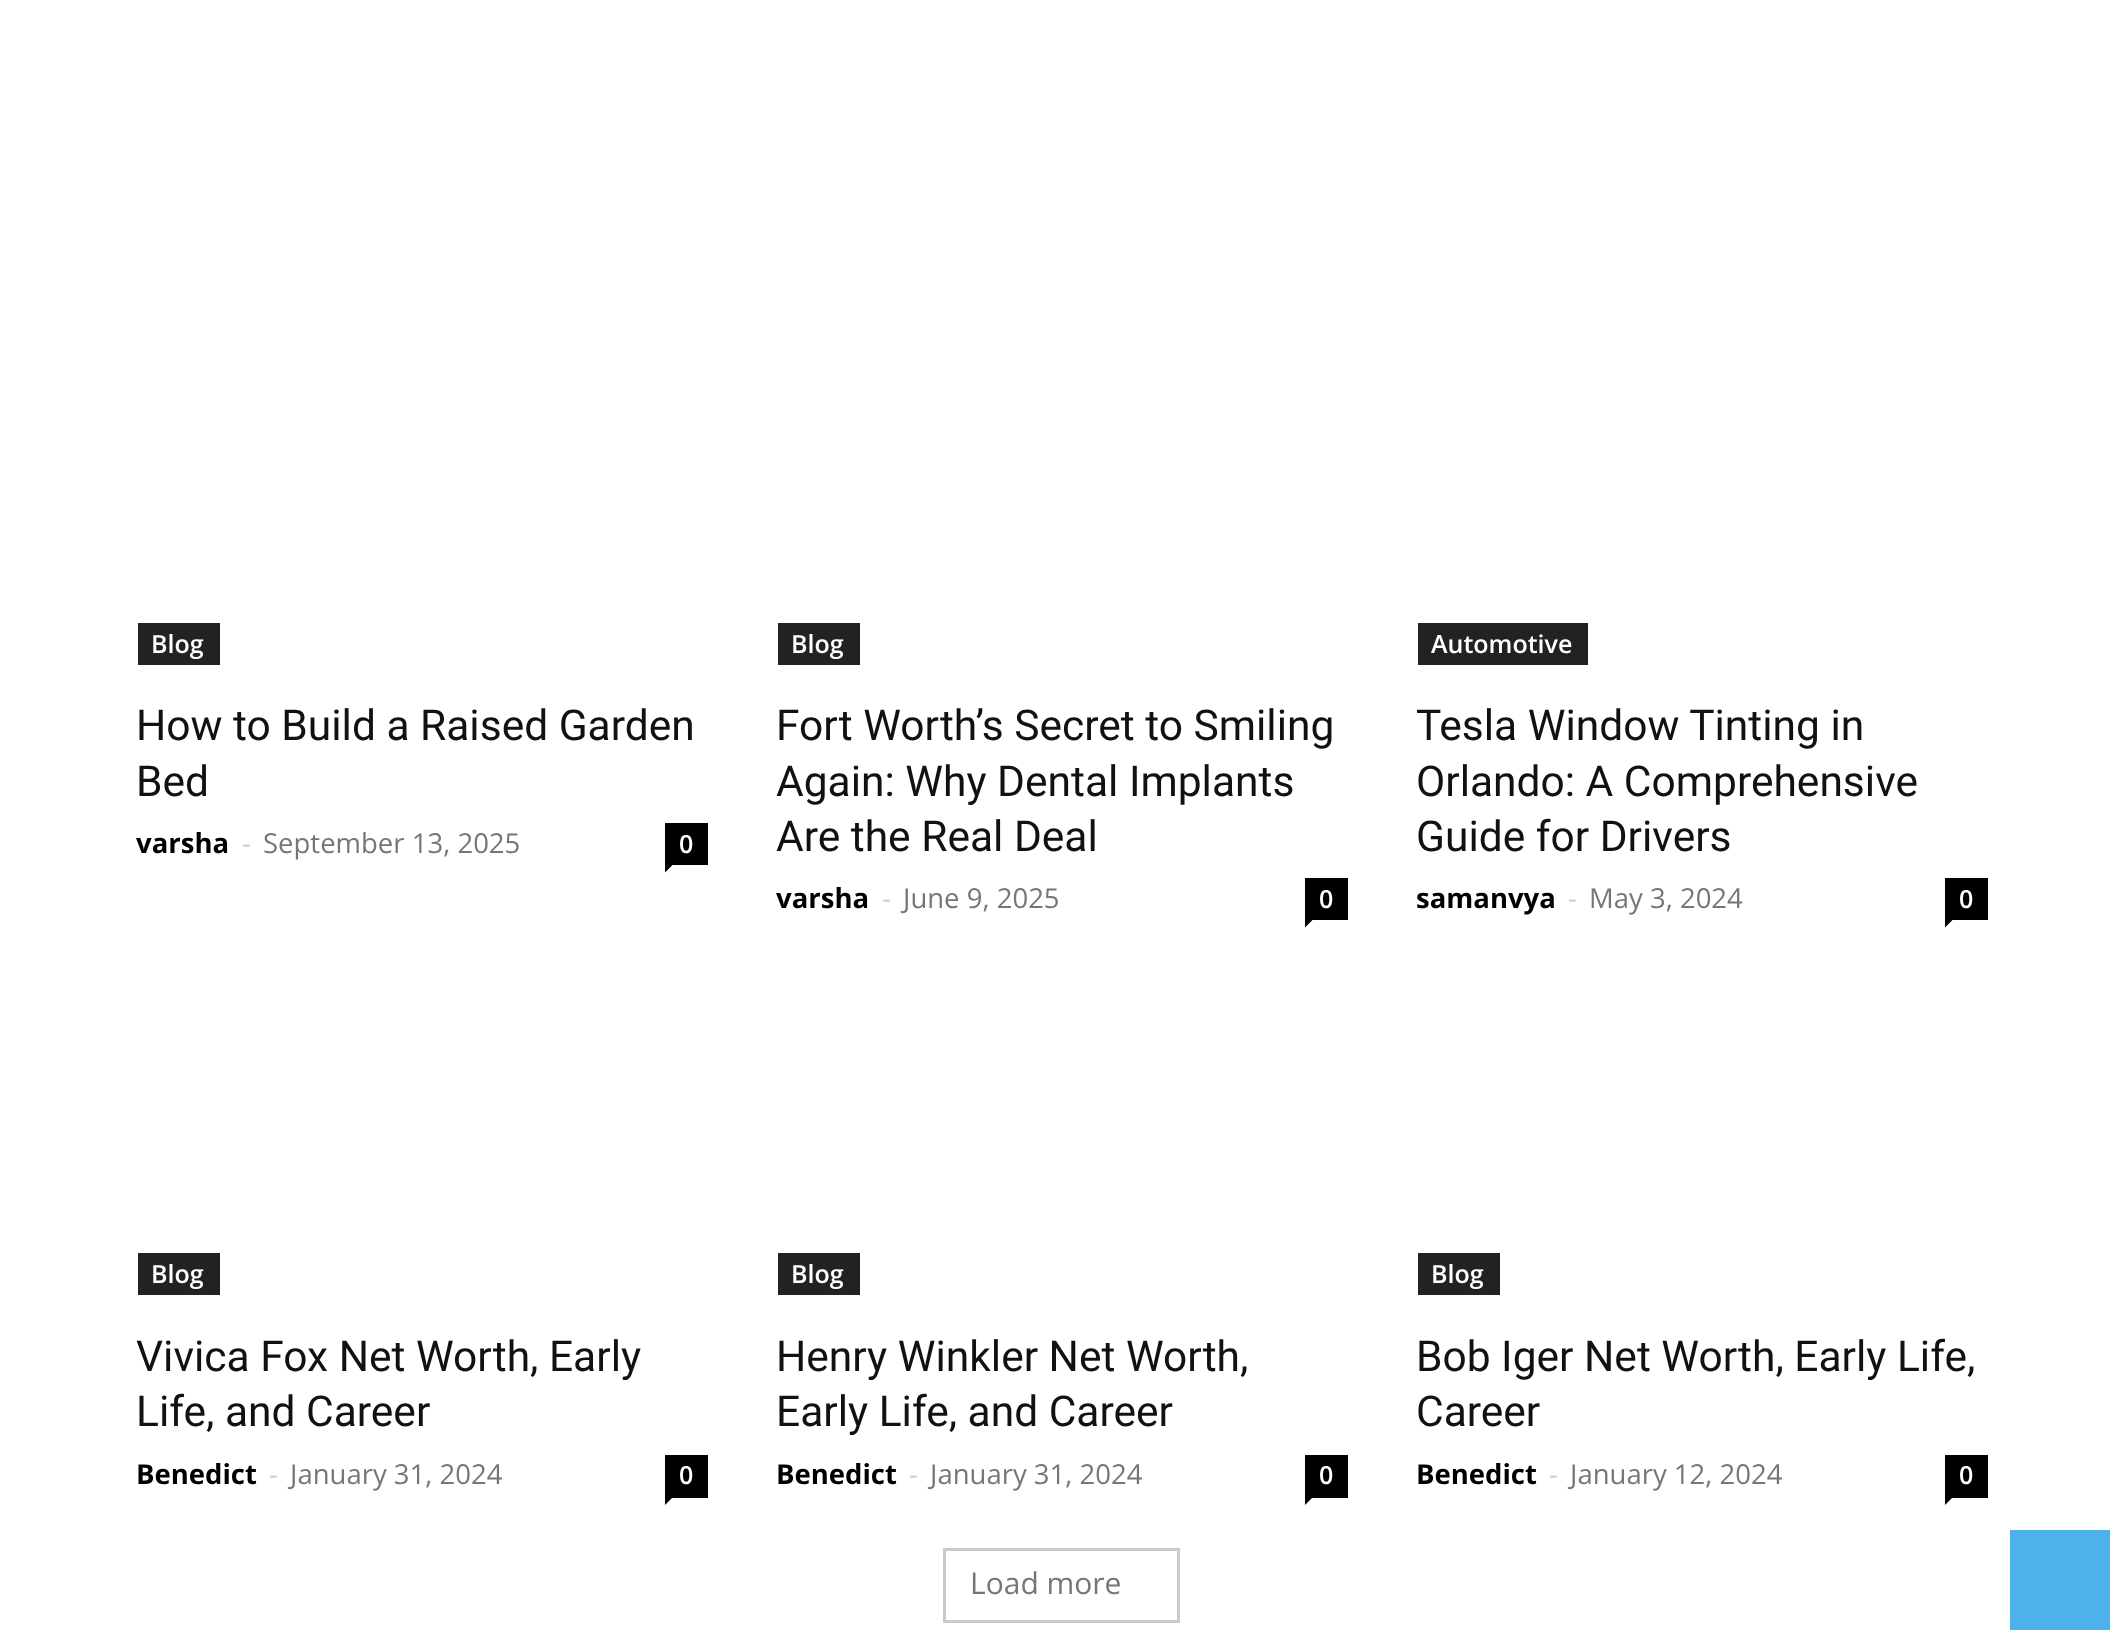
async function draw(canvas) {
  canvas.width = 2122
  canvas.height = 1640
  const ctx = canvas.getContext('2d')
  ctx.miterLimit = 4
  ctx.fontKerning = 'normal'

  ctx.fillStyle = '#fff'
  ctx.fillRect(0, 0, 2122, 1640)
  ctx.fillStyle = '#222'
  ctx.fillRect(138, 623, 82, 42)
  ctx.font = '600 25px Open Sans'
  ctx.fillStyle = '#fff'
  ctx.fillText('Blog', 151, 653)
  ctx.font = '42.5px Roboto'
  ctx.fillStyle = '#111'
  ctx.fillText('How to Build a Raised Garden', 136, 740)
  ctx.fillText('Bed', 136, 796)
  ctx.font = 'bold 27.5px Open Sans'
  ctx.fillStyle = '#000'
  ctx.fillText('varsha', 136, 853)
  ctx.font = '27.5px Open Sans'
  ctx.fillStyle = '#ccc'
  ctx.fillText('-', 242, 853)
  ctx.fillStyle = '#767676'
  ctx.fillText('September 13, 2025', 263, 853)
  ctx.fillStyle = '#000'
  ctx.fillRect(665, 823, 43, 42)
  ctx.font = '600 25px Open Sans'
  ctx.fillStyle = '#fff'
  ctx.fillText('0', 679, 853)
  ctx.fillStyle = '#000'
  ctx.beginPath()
  ctx.moveTo(665, 865)
  ctx.lineTo(672.5, 865)
  ctx.lineTo(665, 872.5)
  ctx.closePath()
  ctx.fill()
  ctx.fillStyle = '#222'
  ctx.fillRect(778, 623, 82, 42)
  ctx.fillStyle = '#fff'
  ctx.fillText('Blog', 791, 653)
  ctx.font = '42.5px Roboto'
  ctx.fillStyle = '#111'
  ctx.fillText('Fort Worth’s Secret to Smiling', 776, 740)
  ctx.fillText('Again: Why Dental Implants', 776, 796)
  ctx.fillText('Are the Real Deal', 776, 851)
  ctx.font = 'bold 27.5px Open Sans'
  ctx.fillStyle = '#000'
  ctx.fillText('varsha', 776, 908)
  ctx.font = '27.5px Open Sans'
  ctx.fillStyle = '#ccc'
  ctx.fillText('-', 882, 908)
  ctx.fillStyle = '#767676'
  ctx.fillText('June 9, 2025', 903, 908)
  ctx.fillStyle = '#000'
  ctx.fillRect(1305, 878, 43, 42)
  ctx.font = '600 25px Open Sans'
  ctx.fillStyle = '#fff'
  ctx.fillText('0', 1319, 908)
  ctx.fillStyle = '#000'
  ctx.beginPath()
  ctx.moveTo(1305, 920)
  ctx.lineTo(1312.5, 920)
  ctx.lineTo(1305, 927.5)
  ctx.closePath()
  ctx.fill()
  ctx.fillStyle = '#222'
  ctx.fillRect(1418, 623, 170, 42)
  ctx.fillStyle = '#fff'
  ctx.fillText('Automotive', 1431, 653)
  ctx.font = '42.5px Roboto'
  ctx.fillStyle = '#111'
  ctx.fillText('Tesla Window Tinting in', 1416, 740)
  ctx.fillText('Orlando: A Comprehensive', 1416, 796)
  ctx.fillText('Guide for Drivers', 1416, 851)
  ctx.font = 'bold 27.5px Open Sans'
  ctx.fillStyle = '#000'
  ctx.fillText('samanvya', 1416, 908)
  ctx.font = '27.5px Open Sans'
  ctx.fillStyle = '#ccc'
  ctx.fillText('-', 1568, 908)
  ctx.fillStyle = '#767676'
  ctx.fillText('May 3, 2024', 1589, 908)
  ctx.fillStyle = '#000'
  ctx.fillRect(1945, 878, 43, 42)
  ctx.font = '600 25px Open Sans'
  ctx.fillStyle = '#fff'
  ctx.fillText('0', 1959, 908)
  ctx.fillStyle = '#000'
  ctx.beginPath()
  ctx.moveTo(1945, 920)
  ctx.lineTo(1952.5, 920)
  ctx.lineTo(1945, 927.5)
  ctx.closePath()
  ctx.fill()
  ctx.fillStyle = '#222'
  ctx.fillRect(138, 1253, 82, 42)
  ctx.fillStyle = '#fff'
  ctx.fillText('Blog', 151, 1283)
  ctx.font = '42.5px Roboto'
  ctx.fillStyle = '#111'
  ctx.fillText('Vivica Fox Net Worth, Early', 136, 1371)
  ctx.fillText('Life, and Career', 136, 1426)
  ctx.font = 'bold 27.5px Open Sans'
  ctx.fillStyle = '#000'
  ctx.fillText('Benedict', 136, 1484)
  ctx.font = '27.5px Open Sans'
  ctx.fillStyle = '#ccc'
  ctx.fillText('-', 269, 1484)
  ctx.fillStyle = '#767676'
  ctx.fillText('January 31, 2024', 290, 1484)
  ctx.fillStyle = '#000'
  ctx.fillRect(665, 1455, 43, 43)
  ctx.font = '600 25px Open Sans'
  ctx.fillStyle = '#fff'
  ctx.fillText('0', 679, 1484)
  ctx.fillStyle = '#000'
  ctx.beginPath()
  ctx.moveTo(665, 1497.5)
  ctx.lineTo(672.5, 1497.5)
  ctx.lineTo(665, 1505)
  ctx.closePath()
  ctx.fill()
  ctx.fillStyle = '#222'
  ctx.fillRect(778, 1253, 82, 42)
  ctx.fillStyle = '#fff'
  ctx.fillText('Blog', 791, 1283)
  ctx.font = '42.5px Roboto'
  ctx.fillStyle = '#111'
  ctx.fillText('Henry Winkler Net Worth,', 776, 1371)
  ctx.fillText('Early Life, and Career', 776, 1426)
  ctx.font = 'bold 27.5px Open Sans'
  ctx.fillStyle = '#000'
  ctx.fillText('Benedict', 776, 1484)
  ctx.font = '27.5px Open Sans'
  ctx.fillStyle = '#ccc'
  ctx.fillText('-', 909, 1484)
  ctx.fillStyle = '#767676'
  ctx.fillText('January 31, 2024', 930, 1484)
  ctx.fillStyle = '#000'
  ctx.fillRect(1305, 1455, 43, 43)
  ctx.font = '600 25px Open Sans'
  ctx.fillStyle = '#fff'
  ctx.fillText('0', 1319, 1484)
  ctx.fillStyle = '#000'
  ctx.beginPath()
  ctx.moveTo(1305, 1497.5)
  ctx.lineTo(1312.5, 1497.5)
  ctx.lineTo(1305, 1505)
  ctx.closePath()
  ctx.fill()
  ctx.fillStyle = '#222'
  ctx.fillRect(1418, 1253, 82, 42)
  ctx.fillStyle = '#fff'
  ctx.fillText('Blog', 1431, 1283)
  ctx.font = '42.5px Roboto'
  ctx.fillStyle = '#111'
  ctx.fillText('Bob Iger Net Worth, Early Life,', 1416, 1371)
  ctx.fillText('Career', 1416, 1426)
  ctx.font = 'bold 27.5px Open Sans'
  ctx.fillStyle = '#000'
  ctx.fillText('Benedict', 1416, 1484)
  ctx.font = '27.5px Open Sans'
  ctx.fillStyle = '#ccc'
  ctx.fillText('-', 1549, 1484)
  ctx.fillStyle = '#767676'
  ctx.fillText('January 12, 2024', 1570, 1484)
  ctx.fillStyle = '#000'
  ctx.fillRect(1945, 1455, 43, 43)
  ctx.font = '600 25px Open Sans'
  ctx.fillStyle = '#fff'
  ctx.fillText('0', 1959, 1484)
  ctx.fillStyle = '#000'
  ctx.beginPath()
  ctx.moveTo(1945, 1497.5)
  ctx.lineTo(1952.5, 1497.5)
  ctx.lineTo(1945, 1505)
  ctx.closePath()
  ctx.fill()
  ctx.strokeStyle = '#c9c9c9'
  ctx.lineWidth = 3
  ctx.strokeRect(944.5, 1549.5, 234, 72)
  ctx.font = '30px Open Sans'
  ctx.fillStyle = '#767676'
  ctx.fillText('Load more', 970, 1594)
  ctx.fillStyle = '#4db2ec'
  ctx.fillRect(2010, 1530, 100, 100)
}

draw(document.querySelector('canvas'))
